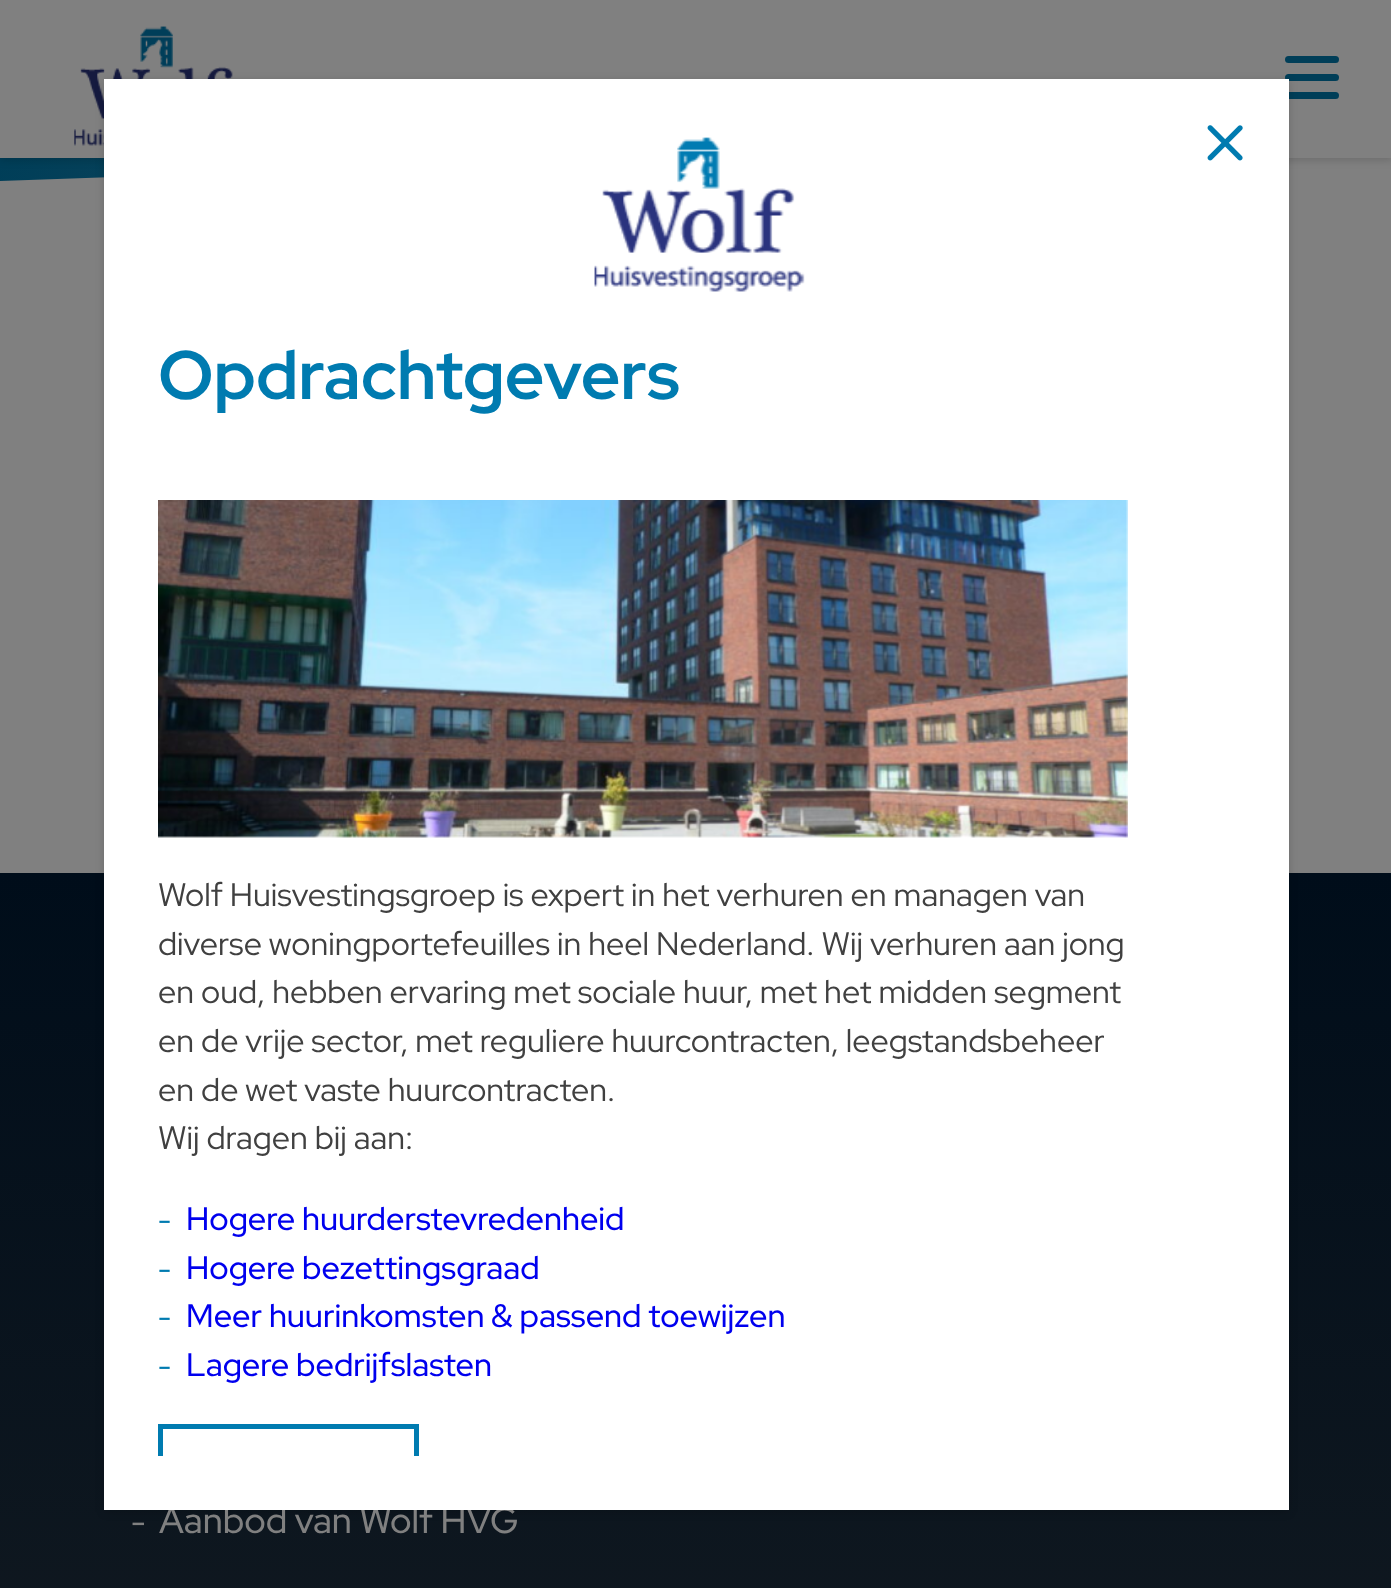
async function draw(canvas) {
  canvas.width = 1391
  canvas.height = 1588
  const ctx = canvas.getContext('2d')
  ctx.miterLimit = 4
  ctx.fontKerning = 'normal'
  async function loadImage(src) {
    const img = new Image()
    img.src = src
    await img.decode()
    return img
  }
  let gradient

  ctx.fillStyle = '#808080'
  ctx.fillRect(0, 0, 1391, 1588)
  gradient = ctx.createLinearGradient(198, -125, 1195, 573)
  gradient.addColorStop(0, '#003e58')
  gradient.addColorStop(1, '#44616d')
  ctx.fillStyle = gradient
  ctx.fillRect(0, 158, 104, 23)
  ctx.save()
  ctx.beginPath()
  ctx.rect(0, 158, 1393, 132)
  ctx.clip()
  ctx.fillStyle = '#808080'
  ctx.beginPath()
  ctx.moveTo(-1, 181)
  ctx.lineTo(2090, 108)
  ctx.lineTo(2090, 220)
  ctx.lineTo(-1, 293)
  ctx.closePath()
  ctx.fill()
  ctx.restore()
  ctx.save()
  ctx.beginPath()
  ctx.moveTo(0, 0)
  ctx.lineTo(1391, 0)
  ctx.lineTo(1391, 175)
  ctx.lineTo(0, 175)
  ctx.closePath()
  ctx.moveTo(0, 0)
  ctx.lineTo(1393, 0)
  ctx.lineTo(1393, 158)
  ctx.lineTo(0, 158)
  ctx.closePath()
  ctx.clip('evenodd')
  ctx.fillStyle = '#00000029'
  ctx.filter = 'blur(4.5px)'
  ctx.beginPath()
  ctx.rect(0, 2, 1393, 158)
  ctx.fill()
  ctx.filter = 'none'
  ctx.restore()
  ctx.fillStyle = '#808080'
  ctx.fillRect(54, 157, 203, 1)
  ctx.drawImage(await loadImage('image0.png'), 74, 26, 159, 120)
  ctx.fillStyle = '#003e58'
  ctx.beginPath()
  ctx.roundRect(1285, 56, 29, 7, [3.5, 0, 0, 3.5])
  ctx.fill()
  ctx.beginPath()
  ctx.roundRect(1310, 56, 29, 7, [0, 3.5, 3.5, 0])
  ctx.fill()
  ctx.beginPath()
  ctx.roundRect(1285, 74, 29, 7, [3.5, 0, 0, 3.5])
  ctx.fill()
  ctx.beginPath()
  ctx.roundRect(1310, 74, 29, 7, [0, 3.5, 3.5, 0])
  ctx.fill()
  ctx.fillRect(1285, 92, 29, 7)
  ctx.beginPath()
  ctx.roundRect(1310, 92, 29, 7, [0, 3.5, 3.5, 0])
  ctx.fill()
  gradient = ctx.createLinearGradient(696, 873, 696, 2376)
  gradient.addColorStop(0, '#000d1a')
  gradient.addColorStop(1, '#1e2225')
  ctx.fillStyle = gradient
  ctx.fillRect(0, 873, 1391, 715)
  ctx.fillStyle = '#00000029'
  ctx.filter = 'blur(4.5px)'
  ctx.beginPath()
  ctx.rect(104, 81, 1185, 1431)
  ctx.fill()
  ctx.filter = 'none'
  ctx.font = '500 36px Red Hat Display'
  ctx.fillStyle = '#808080'
  ctx.fillText('Aanbod van Wolf HVG', 159, 1533)
  ctx.fillStyle = '#fff'
  ctx.fillRect(104, 79, 1185, 1431)
  ctx.drawImage(await loadImage('image1.png'), 594, 137, 211, 155)
  ctx.drawImage(await loadImage('image2.png'), 1207, 125, 36, 36)
  ctx.font = 'bold 68.5px Red Hat Display'
  ctx.fillStyle = '#007bb0'
  ctx.fillText('Opdrachtgevers', 158, 399)
  ctx.drawImage(await loadImage('image3.png'), 158, 500, 970, 338)
  ctx.font = '32.4px Red Hat Display'
  ctx.fillStyle = '#404040'
  ctx.fillText('Wolf Huisvestingsgroep is expert in het verhuren en managen van', 158, 906)
  ctx.fillText('diverse woningportefeuilles in heel Nederland. Wij verhuren aan jong', 158, 955)
  ctx.fillText('en oud, hebben ervaring met sociale huur, met het midden segment', 158, 1003)
  ctx.fillText('en de vrije sector, met reguliere huurcontracten, leegstandsbeheer', 158, 1052)
  ctx.fillText('en de wet vaste huurcontracten.', 158, 1101)
  ctx.fillText('Wij dragen bij aan:', 158, 1149)
  ctx.font = '500 29px Red Hat Display'
  ctx.fillStyle = '#007bb0'
  ctx.fillText('-', 158, 1230)
  ctx.font = '500 32.4px Red Hat Display'
  ctx.fillStyle = '#00e'
  ctx.fillText('Hogere huurderstevredenheid', 186, 1230)
  ctx.font = '500 29px Red Hat Display'
  ctx.fillStyle = '#007bb0'
  ctx.fillText('-', 158, 1279)
  ctx.font = '500 32.4px Red Hat Display'
  ctx.fillStyle = '#00e'
  ctx.fillText('Hogere bezettingsgraad', 186, 1279)
  ctx.font = '500 29px Red Hat Display'
  ctx.fillStyle = '#007bb0'
  ctx.fillText('-', 158, 1327)
  ctx.font = '500 32.4px Red Hat Display'
  ctx.fillStyle = '#00e'
  ctx.fillText('Meer huurinkomsten & passend toewijzen', 186, 1327)
  ctx.font = '500 29px Red Hat Display'
  ctx.fillStyle = '#007bb0'
  ctx.fillText('-', 158, 1376)
  ctx.font = '500 32.4px Red Hat Display'
  ctx.fillStyle = '#00e'
  ctx.fillText('Lagere bedrijfslasten', 186, 1376)
  ctx.save()
  ctx.beginPath()
  ctx.rect(158, 338, 1077, 1118)
  ctx.clip()
  ctx.strokeStyle = '#007bb0'
  ctx.lineWidth = 5
  ctx.strokeRect(160.5, 1426.5, 256, 94)
  ctx.restore()
  ctx.fillStyle = '#808080'
  ctx.fillText('-', 131, 1533)
}

draw(document.querySelector('canvas'))
